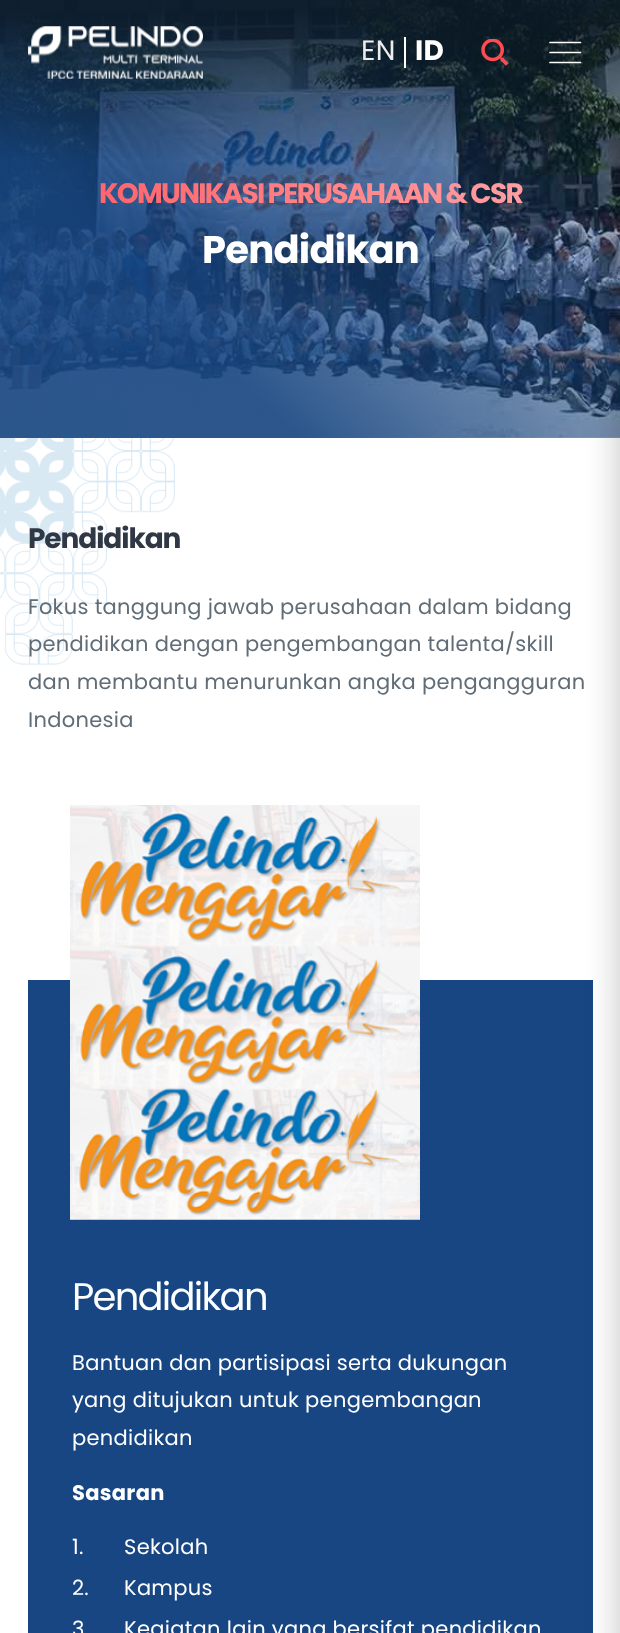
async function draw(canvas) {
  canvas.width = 620
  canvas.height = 1633
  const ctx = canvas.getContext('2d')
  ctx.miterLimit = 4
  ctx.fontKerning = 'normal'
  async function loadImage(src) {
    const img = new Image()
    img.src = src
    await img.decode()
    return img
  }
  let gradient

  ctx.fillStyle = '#fff'
  ctx.fillRect(0, 0, 620, 1633)
  ctx.drawImage(await loadImage('image3.png'), 0, 437, 175, 228)
  ctx.drawImage(await loadImage('image2.png'), 0, 0, 620, 438)
  gradient = ctx.createLinearGradient(576, -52, 49, 486)
  gradient.addColorStop(0, '#17468200')
  gradient.addColorStop(0.72, '#174682e6')
  ctx.fillStyle = gradient
  ctx.fillRect(0, 0, 620, 438)
  gradient = ctx.createLinearGradient(311, 0, 311, 196)
  gradient.addColorStop(0.05, '#0b1926e6')
  gradient.addColorStop(0.83, '#0b192600')
  ctx.fillStyle = gradient
  ctx.fillRect(0, 0, 620, 159)
  ctx.drawImage(await loadImage('image0.png'), 28, 26, 175, 53)
  ctx.fillStyle = '#fff'
  ctx.fillRect(404, 37, 2, 31)
  ctx.letterSpacing = '0.3px'
  ctx.font = '28px Poppins'
  ctx.fillStyle = '#ececec'
  ctx.fillText('EN', 361, 60)
  ctx.font = 'bold 28px Poppins'
  ctx.fillStyle = '#fff'
  ctx.fillText('ID', 415, 60)
  ctx.drawImage(await loadImage('image1.png'), 481, 39, 28, 27)
  ctx.fillStyle = '#174682'
  ctx.fillRect(28, 980, 565, 653)
  ctx.fillStyle = '#00000040'
  ctx.filter = 'blur(17.5px)'
  ctx.beginPath()
  ctx.rect(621, 112, 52, 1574)
  ctx.fill()
  ctx.filter = 'none'
  ctx.beginPath()
  ctx.moveTo(550, 42.5)
  ctx.lineTo(580.5, 42.5)
  ctx.moveTo(550, 52.5)
  ctx.lineTo(580.5, 52.5)
  ctx.moveTo(550, 62.5)
  ctx.lineTo(580.5, 62.5)
  ctx.strokeStyle = '#fff'
  ctx.lineWidth = 1.7
  ctx.lineCap = 'round'
  ctx.lineJoin = 'round'
  ctx.stroke()
  ctx.letterSpacing = '-1.75px'
  gradient = ctx.createLinearGradient(99, 194, 552, 194)
  gradient.addColorStop(0, '#ff656c')
  gradient.addColorStop(1, '#ffa2a5')
  ctx.fillStyle = gradient
  ctx.fillText('KOMUNIKASI PERUSAHAAN & CSR', 99, 203)
  ctx.letterSpacing = '-0.75px'
  ctx.font = 'bold 38.5px Poppins'
  ctx.fillStyle = '#fff'
  ctx.fillText('Pendidikan', 202, 263)
  ctx.letterSpacing = '-1.1px'
  ctx.font = 'bold 28px Poppins'
  ctx.fillStyle = '#2f3844'
  ctx.fillText('Pendidikan', 28, 548)
  ctx.letterSpacing = '0.3px'
  ctx.font = '21px Poppins'
  ctx.fillStyle = '#606c76'
  ctx.fillText('Fokus tanggung jawab perusahaan dalam bidang', 28, 614)
  ctx.fillText('pendidikan dengan pengembangan talenta/skill', 28, 651)
  ctx.fillText('dan membantu menurunkan angka pengangguran', 28, 689)
  ctx.fillText('Indonesia', 28, 727)
  ctx.drawImage(await loadImage('image4.png'), 70, 805, 350, 415)
  ctx.letterSpacing = '-1.75px'
  ctx.font = '38.5px Poppins'
  ctx.fillStyle = '#fff'
  ctx.fillText('Pendidikan', 72, 1310)
  ctx.letterSpacing = '0.3px'
  ctx.font = '21px Poppins'
  ctx.fillText('Bantuan dan partisipasi serta dukungan', 72, 1370)
  ctx.fillText('yang ditujukan untuk pengembangan', 72, 1407)
  ctx.fillText('pendidikan', 72, 1445)
  ctx.font = 'bold 21px Poppins'
  ctx.fillText('Sasaran', 72, 1500)
  ctx.font = '21px Poppins'
  ctx.fillText('1.', 72, 1554)
  ctx.fillText('Sekolah', 124, 1554)
  ctx.fillText('2.', 72, 1595)
  ctx.fillText('Kampus', 124, 1595)
  ctx.fillText('3', 72, 1636)
  ctx.fillText('Kegiatan lain yang bersifat pendidikan', 124, 1636)
}

draw(document.querySelector('canvas'))
